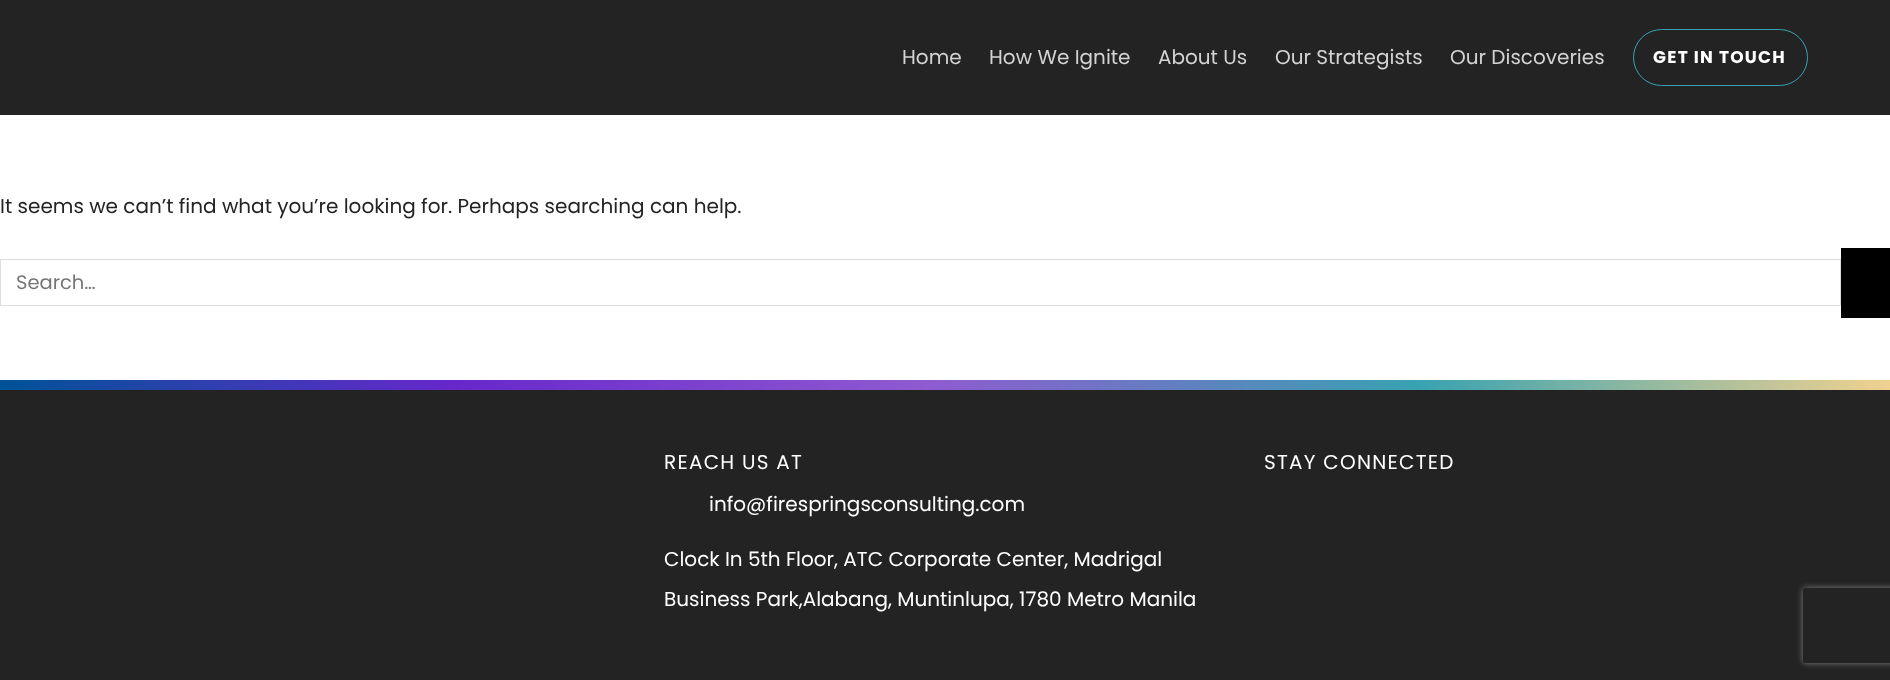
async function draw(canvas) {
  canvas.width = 1890
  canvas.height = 680
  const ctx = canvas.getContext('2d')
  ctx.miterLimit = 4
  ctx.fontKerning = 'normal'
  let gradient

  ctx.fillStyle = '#fff'
  ctx.fillRect(0, 0, 1890, 680)
  ctx.fillStyle = '#232323'
  ctx.fillRect(0, 0, 1890, 115)
  ctx.font = '20px Poppins'
  ctx.fillStyle = '#d3d3d3'
  ctx.fillText('Home', 902, 64)
  ctx.fillText('How We Ignite', 989, 64)
  ctx.fillText('About Us', 1158, 64)
  ctx.fillText('Our Strategists', 1275, 64)
  ctx.fillText('Our Discoveries', 1450, 64)
  ctx.beginPath()
  ctx.roundRect(1633.5, 29.5, 174, 56, 28)
  ctx.strokeStyle = '#38a2b1'
  ctx.stroke()
  ctx.letterSpacing = '1.25px'
  ctx.font = 'bold 17px Poppins'
  ctx.fillStyle = '#fff'
  ctx.fillText('GET IN TOUCH', 1653, 63)
  ctx.letterSpacing = '0px'
  ctx.font = '20px Poppins'
  ctx.fillStyle = '#232323'
  ctx.fillText('It seems we can’t find what you’re looking for. Perhaps searching can help.', 0, 213)
  ctx.strokeStyle = '#ddd'
  ctx.strokeRect(0.5, 259.5, 1840, 46)
  ctx.font = '19.5px Poppins'
  ctx.fillStyle = '#757575'
  ctx.fillText('Search…', 16, 289)
  ctx.fillStyle = '#000'
  ctx.fillRect(1841, 248, 49, 70)
  ctx.fillStyle = '#232323'
  ctx.fillRect(0, 390, 1890, 290)
  gradient = ctx.createLinearGradient(0, 385, 1890, 385)
  gradient.addColorStop(0, '#005397')
  gradient.addColorStop(0.24, '#6727cc')
  gradient.addColorStop(0.49, '#8f5bd1')
  gradient.addColorStop(0.75, '#38a2b1')
  gradient.addColorStop(1, '#f1d190')
  ctx.fillStyle = gradient
  ctx.fillRect(0, 380, 1890, 10)
  ctx.letterSpacing = '1.25px'
  ctx.font = '20px Poppins'
  ctx.fillStyle = '#fff'
  ctx.fillText('REACH US AT', 664, 469)
  ctx.letterSpacing = '0px'
  ctx.fillText('info@firespringsconsulting.com', 709, 511)
  ctx.fillText('Clock In 5th Floor, ATC Corporate Center, Madrigal', 664, 566)
  ctx.fillText('Business Park,Alabang, Muntinlupa, 1780 Metro Manila', 664, 606)
  ctx.letterSpacing = '1.25px'
  ctx.fillText('STAY CONNECTED', 1264, 469)
  ctx.save()
  ctx.beginPath()
  ctx.moveTo(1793, 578)
  ctx.lineTo(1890, 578)
  ctx.lineTo(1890, 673)
  ctx.lineTo(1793, 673)
  ctx.closePath()
  ctx.moveTo(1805.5, 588)
  ctx.lineTo(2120.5, 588)
  ctx.bezierCurveTo(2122, 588, 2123, 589, 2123, 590.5)
  ctx.lineTo(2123, 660.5)
  ctx.bezierCurveTo(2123, 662, 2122, 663, 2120.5, 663)
  ctx.lineTo(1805.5, 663)
  ctx.bezierCurveTo(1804, 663, 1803, 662, 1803, 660.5)
  ctx.lineTo(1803, 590.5)
  ctx.bezierCurveTo(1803, 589, 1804, 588, 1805.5, 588)
  ctx.closePath()
  ctx.clip('evenodd')
  ctx.fillStyle = '#808080'
  ctx.filter = 'blur(3px)'
  ctx.beginPath()
  ctx.roundRect(1803, 588, 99, 75, 2.5)
  ctx.fill()
  ctx.filter = 'none'
  ctx.restore()
}

draw(document.querySelector('canvas'))
